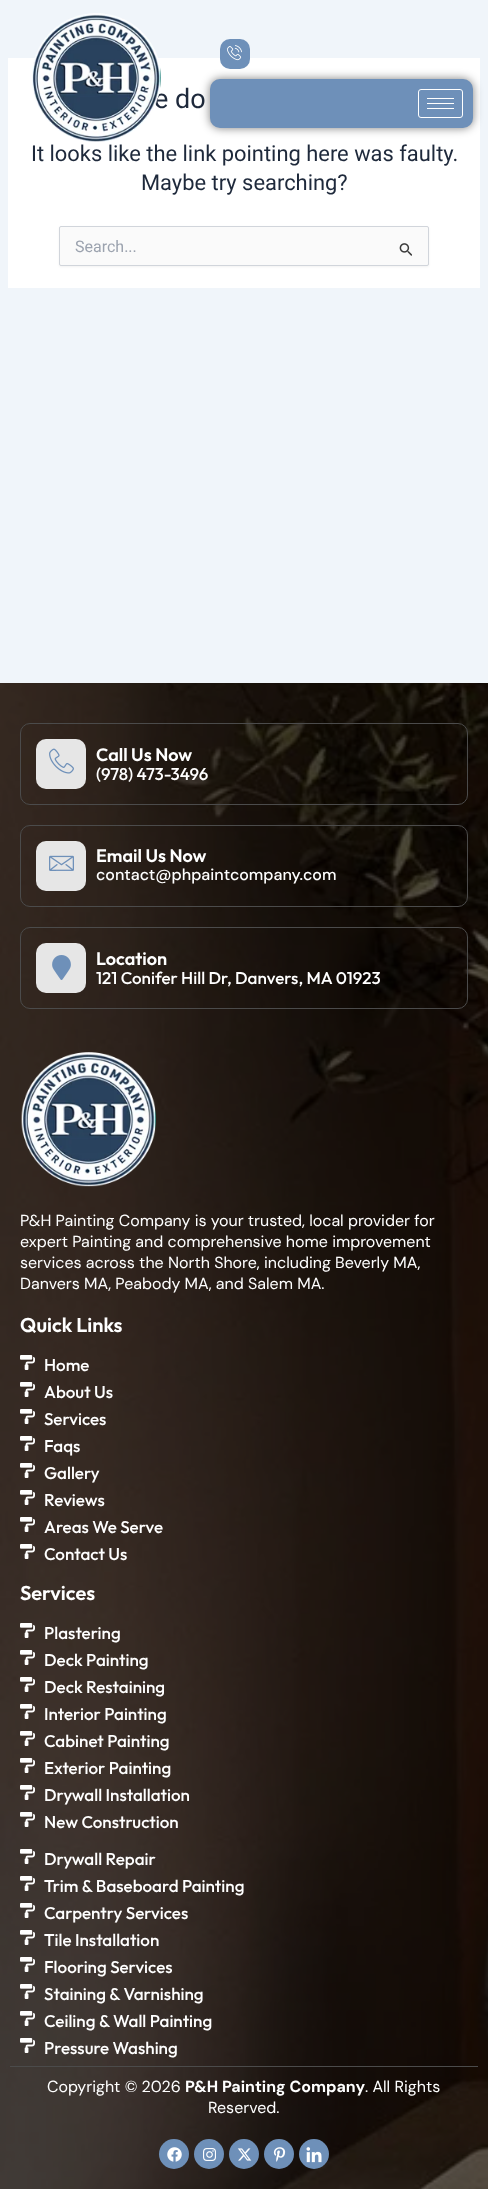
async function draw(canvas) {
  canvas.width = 488
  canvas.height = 2189
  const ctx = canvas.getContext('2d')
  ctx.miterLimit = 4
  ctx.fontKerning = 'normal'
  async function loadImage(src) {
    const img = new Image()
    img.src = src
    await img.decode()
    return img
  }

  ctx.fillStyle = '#f0f5fa'
  ctx.fillRect(0, 0, 488, 2189)
  ctx.fillStyle = '#fff'
  ctx.fillRect(8, 58, 472, 230)
  ctx.font = '27px Roboto'
  ctx.fillStyle = '#1e293b'
  ctx.fillText('e do', 154, 108)
  ctx.drawImage(await loadImage('image0.png'), 32, 13, 129, 129)
  ctx.fillStyle = '#00000080'
  ctx.filter = 'blur(5px)'
  ctx.beginPath()
  ctx.roundRect(210, 79, 263, 49, 10)
  ctx.fill()
  ctx.filter = 'none'
  ctx.fillStyle = '#6e90b9'
  ctx.beginPath()
  ctx.roundRect(220, 39, 30, 30, 10)
  ctx.fill()
  ctx.drawImage(await loadImage('image1.png'), 227, 45, 15, 16)
  ctx.beginPath()
  ctx.roundRect(210, 79, 263, 49, 10)
  ctx.fill()
  ctx.beginPath()
  ctx.roundRect(418.5, 89.5, 44, 28, 2.5)
  ctx.strokeStyle = '#fff'
  ctx.stroke()
  ctx.fillStyle = '#fff'
  ctx.fillRect(427, 98, 27, 1)
  ctx.fillRect(427, 103, 27, 1)
  ctx.fillRect(427, 108, 27, 1)
  ctx.font = '21.9px Roboto'
  ctx.fillStyle = '#1e293b'
  ctx.fillText('It looks like the link pointing here was faulty.', 31, 161)
  ctx.fillText('Maybe try searching?', 141, 190)
  ctx.fillStyle = '#0000000d'
  ctx.filter = 'blur(1px)'
  ctx.beginPath()
  ctx.roundRect(59, 227, 370, 40, 2)
  ctx.fill()
  ctx.filter = 'none'
  ctx.fillStyle = '#fafafa'
  ctx.beginPath()
  ctx.roundRect(59.5, 226.5, 369, 39, 1.5)
  ctx.fill()
  ctx.strokeStyle = '#d1d5db'
  ctx.stroke()
  ctx.font = '16px Roboto'
  ctx.fillStyle = '#9ca3af'
  ctx.fillText('Search...', 75, 252)
  ctx.drawImage(await loadImage('image2.png'), 399, 243, 13, 13)
  ctx.drawImage(await loadImage('image3.png'), 0, 683, 488, 1506)
  ctx.beginPath()
  ctx.roundRect(20.5, 723.5, 447, 81, 9.5)
  ctx.strokeStyle = '#4b4b4b'
  ctx.stroke()
  ctx.fillStyle = '#e6e6e6'
  ctx.beginPath()
  ctx.roundRect(36, 739, 50, 50, 10)
  ctx.fill()
  ctx.drawImage(await loadImage('image4.png'), 49, 748, 25, 26)
  ctx.font = '600 18px Outfit'
  ctx.fillStyle = '#fff'
  ctx.fillText('Call Us Now', 96, 761)
  ctx.font = '500 17px Outfit'
  ctx.fillText('(978) 473-3496', 96, 780)
  ctx.beginPath()
  ctx.roundRect(20.5, 825.5, 447, 81, 9.5)
  ctx.stroke()
  ctx.fillStyle = '#e6e6e6'
  ctx.beginPath()
  ctx.roundRect(36, 841, 50, 50, 10)
  ctx.fill()
  ctx.drawImage(await loadImage('image5.png'), 49, 855, 25, 16)
  ctx.font = '600 18px Outfit'
  ctx.fillStyle = '#fff'
  ctx.fillText('Email Us Now', 96, 862)
  ctx.font = '500 16px DM Sans'
  ctx.fillText('contact@phpaintcompany.com', 96, 880)
  ctx.beginPath()
  ctx.roundRect(20.5, 927.5, 447, 81, 9.5)
  ctx.stroke()
  ctx.fillStyle = '#e6e6e6'
  ctx.beginPath()
  ctx.roundRect(36, 943, 50, 50, 10)
  ctx.fill()
  ctx.drawImage(await loadImage('image6.png'), 52, 955, 19, 25)
  ctx.font = '600 18px Outfit'
  ctx.fillStyle = '#fff'
  ctx.fillText('Location', 96, 965)
  ctx.font = '500 17px Outfit'
  ctx.fillText('121 Conifer Hill Dr, Danvers, MA 01923', 96, 984)
  ctx.drawImage(await loadImage('image7.png'), 21, 1052, 135, 135)
  ctx.font = '16px DM Sans'
  ctx.fillText('P&H Painting Company is your trusted, local provider for', 20, 1226)
  ctx.fillText('expert Painting and comprehensive home improvement', 20, 1247)
  ctx.fillText('services across the North Shore, including Beverly MA,', 20, 1268)
  ctx.fillText('Danvers MA, Peabody MA, and Salem MA.', 20, 1289)
  ctx.font = '600 20px Outfit'
  ctx.fillText('Quick Links', 20, 1332)
  ctx.drawImage(await loadImage('image8.png'), 20, 1355, 15, 15)
  ctx.font = '500 17px Outfit'
  ctx.fillText('Home', 44, 1371)
  ctx.drawImage(await loadImage('image9.png'), 20, 1382, 15, 15)
  ctx.fillText('About Us', 44, 1398)
  ctx.drawImage(await loadImage('image10.png'), 20, 1409, 15, 15)
  ctx.fillText('Services', 44, 1425)
  ctx.drawImage(await loadImage('image11.png'), 20, 1436, 15, 15)
  ctx.fillText('Faqs', 44, 1452)
  ctx.drawImage(await loadImage('image12.png'), 20, 1463, 15, 15)
  ctx.fillText('Gallery', 44, 1479)
  ctx.drawImage(await loadImage('image13.png'), 20, 1490, 15, 15)
  ctx.fillText('Reviews', 44, 1506)
  ctx.drawImage(await loadImage('image14.png'), 20, 1517, 15, 15)
  ctx.fillText('Areas We Serve', 44, 1533)
  ctx.drawImage(await loadImage('image15.png'), 20, 1544, 15, 15)
  ctx.fillText('Contact Us', 44, 1560)
  ctx.font = '600 20px Outfit'
  ctx.fillText('Services', 20, 1600)
  ctx.drawImage(await loadImage('image16.png'), 20, 1623, 15, 15)
  ctx.font = '500 17px Outfit'
  ctx.fillText('Plastering', 44, 1639)
  ctx.drawImage(await loadImage('image17.png'), 20, 1650, 15, 15)
  ctx.fillText('Deck Painting', 44, 1666)
  ctx.drawImage(await loadImage('image18.png'), 20, 1677, 15, 15)
  ctx.fillText('Deck Restaining', 44, 1693)
  ctx.drawImage(await loadImage('image19.png'), 20, 1704, 15, 15)
  ctx.fillText('Interior Painting', 44, 1720)
  ctx.drawImage(await loadImage('image20.png'), 20, 1731, 15, 15)
  ctx.fillText('Cabinet Painting', 44, 1747)
  ctx.drawImage(await loadImage('image21.png'), 20, 1758, 15, 15)
  ctx.fillText('Exterior Painting', 44, 1774)
  ctx.drawImage(await loadImage('image22.png'), 20, 1785, 15, 15)
  ctx.fillText('Drywall Installation', 44, 1801)
  ctx.drawImage(await loadImage('image23.png'), 20, 1812, 15, 15)
  ctx.fillText('New Construction', 44, 1828)
  ctx.drawImage(await loadImage('image24.png'), 20, 1849, 15, 15)
  ctx.fillText('Drywall Repair', 44, 1865)
  ctx.drawImage(await loadImage('image25.png'), 20, 1876, 15, 15)
  ctx.fillText('Trim & Baseboard Painting', 44, 1892)
  ctx.drawImage(await loadImage('image26.png'), 20, 1903, 15, 15)
  ctx.fillText('Carpentry Services', 44, 1919)
  ctx.drawImage(await loadImage('image27.png'), 20, 1930, 15, 15)
  ctx.fillText('Tile Installation', 44, 1946)
  ctx.drawImage(await loadImage('image28.png'), 20, 1957, 15, 15)
  ctx.fillText('Flooring Services', 44, 1973)
  ctx.drawImage(await loadImage('image29.png'), 20, 1984, 15, 15)
  ctx.fillText('Staining & Varnishing', 44, 2000)
  ctx.drawImage(await loadImage('image30.png'), 20, 2011, 15, 15)
  ctx.fillText('Ceiling & Wall Painting', 44, 2027)
  ctx.drawImage(await loadImage('image31.png'), 20, 2038, 15, 15)
  ctx.fillText('Pressure Washing', 44, 2054)
  ctx.fillStyle = '#4b4b4b'
  ctx.fillRect(10, 2066, 468, 1)
  ctx.font = '16px DM Sans'
  ctx.fillStyle = '#fff'
  ctx.fillText('Copyright © 2026', 47, 2092)
  ctx.font = 'bold 16px DM Sans'
  ctx.fillText('P&H Painting Company', 185, 2092)
  ctx.font = '16px DM Sans'
  ctx.fillText('. All Rights', 365, 2092)
  ctx.fillText('Reserved.', 208, 2113)
  ctx.fillStyle = '#6e90b9'
  ctx.beginPath()
  ctx.arc(174, 2154, 15, 0, 2 * Math.PI)
  ctx.fill()
  ctx.drawImage(await loadImage('image32.png'), 167, 2147, 15, 15)
  ctx.beginPath()
  ctx.arc(209, 2154, 15, 0, 2 * Math.PI)
  ctx.fill()
  ctx.drawImage(await loadImage('image33.png'), 203, 2148, 13, 13)
  ctx.beginPath()
  ctx.arc(244, 2154, 15, 0, 2 * Math.PI)
  ctx.fill()
  ctx.drawImage(await loadImage('image34.png'), 237, 2148, 15, 13)
  ctx.beginPath()
  ctx.arc(279, 2154, 15, 0, 2 * Math.PI)
  ctx.fill()
  ctx.drawImage(await loadImage('image35.png'), 273, 2147, 13, 15)
  ctx.beginPath()
  ctx.arc(314, 2154, 15, 0, 2 * Math.PI)
  ctx.fill()
  ctx.drawImage(await loadImage('image36.png'), 306, 2147, 16, 16)
}

draw(document.querySelector('canvas'))
